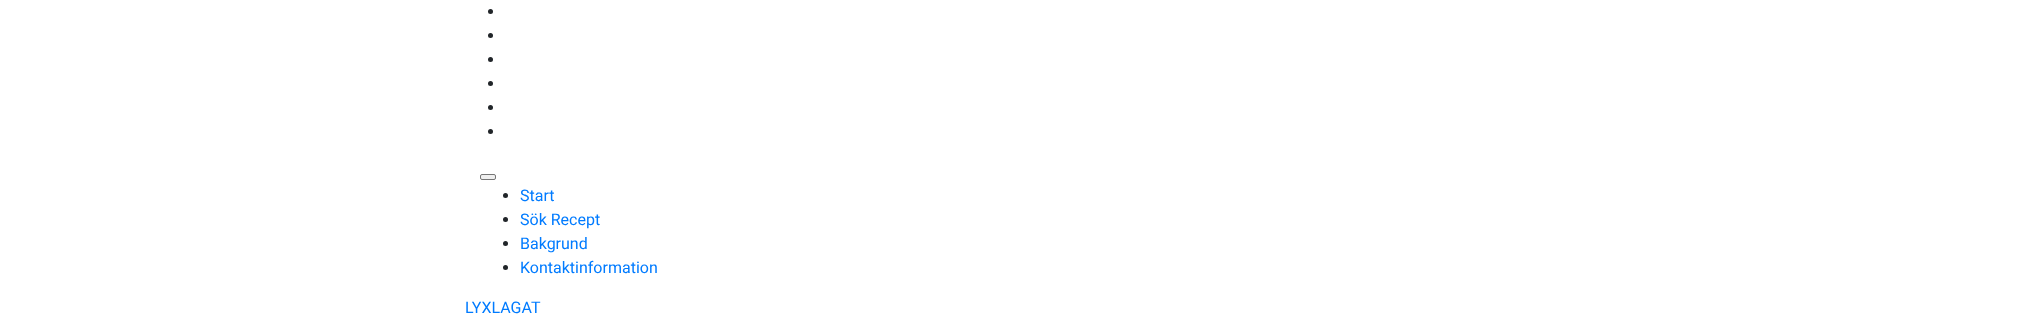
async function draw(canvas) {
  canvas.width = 2040
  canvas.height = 318
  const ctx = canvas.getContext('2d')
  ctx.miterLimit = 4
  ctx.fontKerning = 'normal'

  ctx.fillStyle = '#fff'
  ctx.fillRect(0, 0, 2040, 318)
  ctx.fillStyle = '#212529'
  ctx.beginPath()
  ctx.arc(490.5, 11.5, 2.5, 0, 2 * Math.PI)
  ctx.fill()
  ctx.beginPath()
  ctx.arc(490.5, 35.5, 2.5, 0, 2 * Math.PI)
  ctx.fill()
  ctx.beginPath()
  ctx.arc(490.5, 59.5, 2.5, 0, 2 * Math.PI)
  ctx.fill()
  ctx.beginPath()
  ctx.arc(490.5, 83.5, 2.5, 0, 2 * Math.PI)
  ctx.fill()
  ctx.beginPath()
  ctx.arc(490.5, 107.5, 2.5, 0, 2 * Math.PI)
  ctx.fill()
  ctx.beginPath()
  ctx.arc(490.5, 131.5, 2.5, 0, 2 * Math.PI)
  ctx.fill()
  ctx.fillStyle = '#efefef'
  ctx.beginPath()
  ctx.roundRect(480.5, 174.5, 15, 5, 1.5)
  ctx.fill()
  ctx.strokeStyle = '#767676'
  ctx.stroke()
  ctx.fillStyle = '#212529'
  ctx.beginPath()
  ctx.arc(505.5, 195.5, 2.5, 0, 2 * Math.PI)
  ctx.fill()
  ctx.font = '16px Roboto'
  ctx.fillStyle = '#007bff'
  ctx.fillText('Start', 520, 201)
  ctx.fillStyle = '#212529'
  ctx.beginPath()
  ctx.arc(505.5, 219.5, 2.5, 0, 2 * Math.PI)
  ctx.fill()
  ctx.fillStyle = '#007bff'
  ctx.fillText('Sök Recept', 520, 225)
  ctx.fillStyle = '#212529'
  ctx.beginPath()
  ctx.arc(505.5, 243.5, 2.5, 0, 2 * Math.PI)
  ctx.fill()
  ctx.fillStyle = '#007bff'
  ctx.fillText('Bakgrund', 520, 249)
  ctx.fillStyle = '#212529'
  ctx.beginPath()
  ctx.arc(505.5, 267.5, 2.5, 0, 2 * Math.PI)
  ctx.fill()
  ctx.fillStyle = '#007bff'
  ctx.fillText('Kontaktinformation', 520, 273)
  ctx.fillText('LYXLAGAT', 465, 313)
}

draw(document.querySelector('canvas'))
